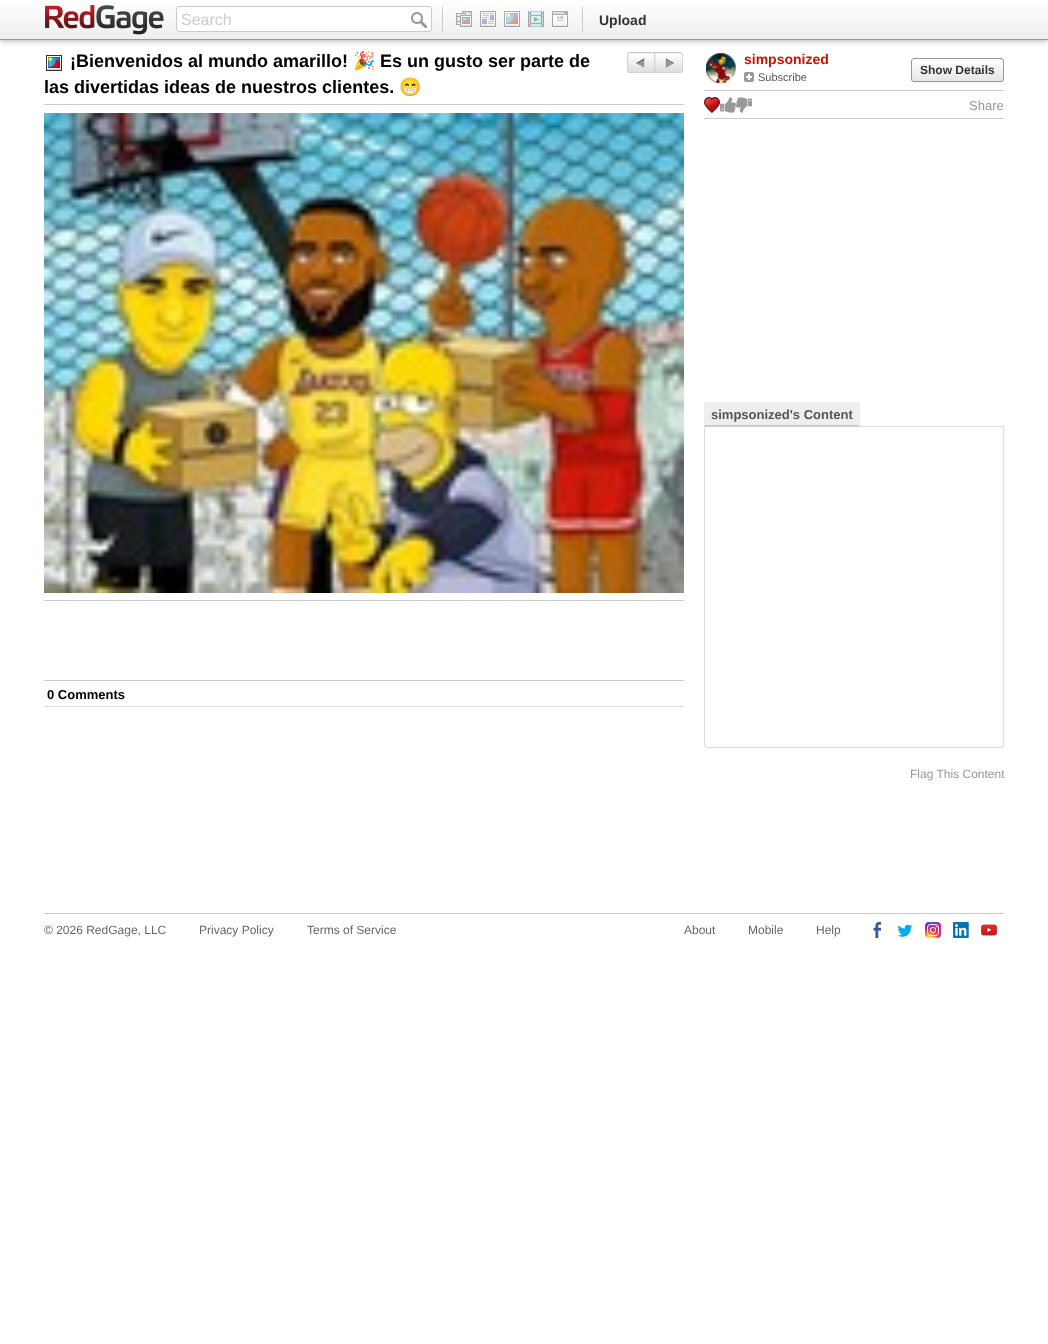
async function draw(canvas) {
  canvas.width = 1048
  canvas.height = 1344
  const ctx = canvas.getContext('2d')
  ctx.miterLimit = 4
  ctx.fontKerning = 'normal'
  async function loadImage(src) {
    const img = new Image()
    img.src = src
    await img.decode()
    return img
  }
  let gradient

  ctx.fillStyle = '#fff'
  ctx.fillRect(0, 0, 1048, 1344)
  ctx.fillStyle = '#00000066'
  ctx.filter = 'blur(3px)'
  ctx.beginPath()
  ctx.rect(0, 0, 1048, 40)
  ctx.fill()
  ctx.filter = 'none'
  gradient = ctx.createLinearGradient(524, 0, 524, 39)
  gradient.addColorStop(0, '#fff')
  gradient.addColorStop(1, '#eee')
  ctx.fillStyle = gradient
  ctx.fillRect(0, 0, 1048, 39)
  ctx.fillStyle = '#999'
  ctx.fillRect(0, 39, 1048, 1)
  ctx.drawImage(await loadImage('image0.png'), 45, 5, 119, 30)
  ctx.fillStyle = '#fff'
  ctx.beginPath()
  ctx.roundRect(176.5, 6.5, 255, 25, 2.5)
  ctx.fill()
  ctx.strokeStyle = '#ccc'
  ctx.stroke()
  ctx.font = '16px Liberation Sans'
  ctx.fillStyle = '#ccc'
  ctx.fillText('Search', 181, 25)
  ctx.drawImage(await loadImage('image1.png'), 411, 12, 16, 16)
  ctx.fillRect(582, 7, 1, 25)
  ctx.fillRect(442, 7, 1, 25)
  ctx.drawImage(await loadImage('image2.png'), 456, 11, 16, 16)
  ctx.drawImage(await loadImage('image3.png'), 480, 11, 16, 16)
  ctx.drawImage(await loadImage('image4.png'), 504, 11, 16, 16)
  ctx.drawImage(await loadImage('image5.png'), 528, 11, 16, 16)
  ctx.drawImage(await loadImage('image6.png'), 552, 11, 16, 16)
  ctx.font = 'bold 14px Liberation Sans'
  ctx.fillStyle = '#333'
  ctx.fillText('Upload', 599, 25)
  ctx.fillStyle = '#ccc'
  ctx.fillRect(44, 104, 640, 1)
  ctx.drawImage(await loadImage('image7.png'), 46, 55, 16, 16)
  ctx.font = 'bold 18px Liberation Sans'
  ctx.fillStyle = '#000'
  ctx.fillText('¡Bienvenidos al mundo amarillo!', 70, 67)
  ctx.font = 'bold 18px Noto Color Emoji'
  ctx.fillText('🎉', 353, 67)
  ctx.font = 'bold 18px Liberation Sans'
  ctx.fillText('Es un gusto ser parte de', 380, 67)
  ctx.drawImage(await loadImage('image8.png'), 627, 52, 27, 21)
  ctx.drawImage(await loadImage('image9.png'), 654, 52, 29, 21)
  ctx.fillText('las divertidas ideas de nuestros clientes.', 44, 93)
  ctx.font = 'bold 18px Noto Color Emoji'
  ctx.fillText('😁', 399, 93)
  ctx.drawImage(await loadImage('image10.png'), 44, 113, 640, 480)
  ctx.fillStyle = '#ccc'
  ctx.fillRect(44, 600, 640, 1)
  ctx.fillRect(44, 680, 640, 1)
  ctx.fillStyle = '#ddd'
  ctx.fillRect(44, 706, 640, 1)
  ctx.font = 'bold 13px Liberation Sans'
  ctx.fillStyle = '#000'
  ctx.fillText('0 Comments', 47, 699)
  ctx.drawImage(await loadImage('image11.png'), 706, 53, 30, 30)
  ctx.font = 'bold 14px Liberation Sans'
  ctx.fillStyle = '#c10'
  ctx.fillText('simpsonized', 744, 64)
  ctx.drawImage(await loadImage('image12.png'), 744, 72, 10, 10)
  ctx.font = '11px Liberation Sans'
  ctx.fillStyle = '#555'
  ctx.fillText('Subscribe', 758, 81)
  ctx.fillStyle = '#0000000d'
  ctx.filter = 'blur(1px)'
  ctx.beginPath()
  ctx.roundRect(911, 59, 93, 24, 3)
  ctx.fill()
  ctx.filter = 'none'
  ctx.save()
  ctx.beginPath()
  ctx.roundRect(911, 58, 93, 24, 3)
  ctx.clip()
  gradient = ctx.createLinearGradient(958, 59, 958, 81)
  gradient.addColorStop(0, '#fff')
  gradient.addColorStop(1, '#e6e6e6')
  ctx.fillStyle = gradient
  ctx.fillRect(911, 59, 93, 22)
  ctx.restore()
  ctx.beginPath()
  ctx.roundRect(911.5, 58.5, 92, 23, 2.5)
  ctx.strokeStyle = '#999'
  ctx.stroke()
  ctx.font = 'bold 12px Liberation Sans'
  ctx.fillStyle = '#333'
  ctx.fillText('Show Details', 920, 74)
  ctx.fillStyle = '#ccc'
  ctx.fillRect(704, 90, 300, 1)
  ctx.fillRect(704, 118, 300, 1)
  ctx.drawImage(await loadImage('image13.png'), 704, 97, 16, 16)
  ctx.drawImage(await loadImage('image14.png'), 720, 97, 16, 16)
  ctx.drawImage(await loadImage('image15.png'), 736, 97, 16, 16)
  ctx.font = '13px Liberation Sans'
  ctx.fillStyle = '#999'
  ctx.fillText('Share', 969, 110)
  ctx.fillStyle = '#ddd'
  ctx.fillRect(860, 426, 144, 1)
  ctx.fillStyle = '#eee'
  ctx.beginPath()
  ctx.roundRect(704, 402, 156, 25, [3, 3, 0, 0])
  ctx.fill()
  ctx.fillStyle = '#ccc'
  ctx.beginPath()
  ctx.moveTo(860, 427)
  ctx.lineTo(859, 425)
  ctx.lineTo(705, 425)
  ctx.lineTo(704, 427)
  ctx.closePath()
  ctx.fill()
  ctx.font = 'bold 13px Liberation Sans'
  ctx.fillStyle = '#555'
  ctx.fillText('simpsonized\'s Content', 711, 419)
  ctx.fillStyle = '#ddd'
  ctx.beginPath()
  ctx.moveTo(704, 427)
  ctx.lineTo(1004, 427)
  ctx.lineTo(1004, 745)
  ctx.bezierCurveTo(1004, 747, 1003, 748, 1001, 748)
  ctx.lineTo(707, 748)
  ctx.bezierCurveTo(705, 748, 704, 747, 704, 745)
  ctx.closePath()
  ctx.moveTo(705, 427)
  ctx.lineTo(1003, 427)
  ctx.lineTo(1003, 745)
  ctx.bezierCurveTo(1003, 746, 1002, 747, 1001, 747)
  ctx.lineTo(707, 747)
  ctx.bezierCurveTo(706, 747, 705, 746, 705, 745)
  ctx.closePath()
  ctx.fill('evenodd')
  ctx.font = '12px Liberation Sans'
  ctx.fillStyle = '#999'
  ctx.fillText('Flag This Content', 910, 778)
  ctx.fillStyle = '#ccc'
  ctx.fillRect(44, 913, 960, 1)
  ctx.fillStyle = '#666'
  ctx.fillText('© 2026 RedGage, LLC', 44, 934)
  ctx.fillText('Privacy Policy', 199, 934)
  ctx.fillText('Terms of Service', 307, 934)
  ctx.fillText('About', 684, 934)
  ctx.fillText('Mobile', 748, 934)
  ctx.fillText('Help', 816, 934)
  ctx.drawImage(await loadImage('image16.png'), 873, 922, 8, 16)
  ctx.drawImage(await loadImage('image17.png'), 897, 924, 16, 13)
  ctx.drawImage(await loadImage('image18.png'), 925, 922, 16, 16)
  ctx.drawImage(await loadImage('image19.png'), 953, 922, 16, 16)
  ctx.drawImage(await loadImage('image20.png'), 981, 924, 16, 12)
}

draw(document.querySelector('canvas'))
